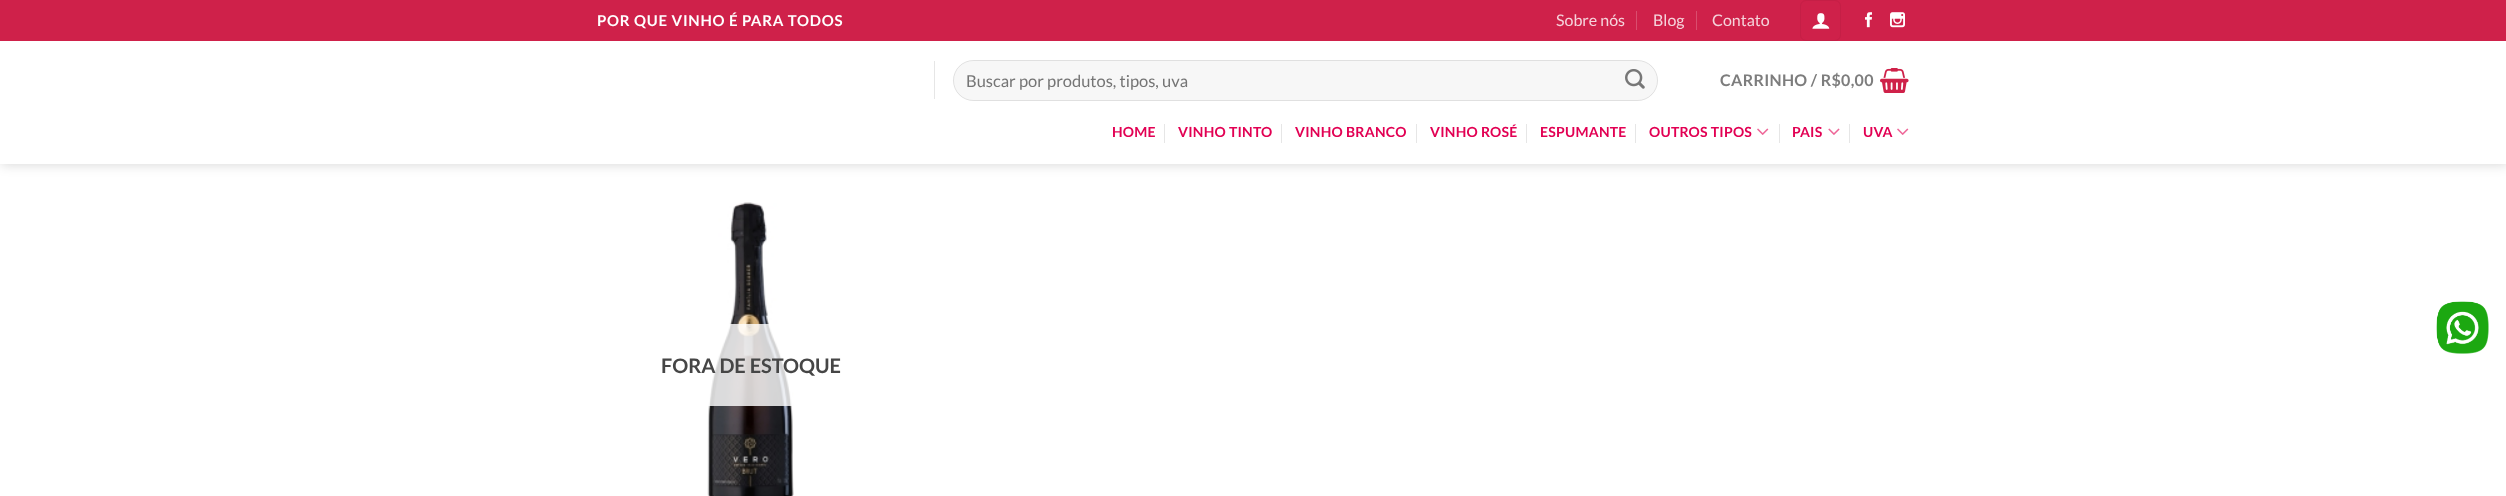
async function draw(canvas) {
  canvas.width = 2506
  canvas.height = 496
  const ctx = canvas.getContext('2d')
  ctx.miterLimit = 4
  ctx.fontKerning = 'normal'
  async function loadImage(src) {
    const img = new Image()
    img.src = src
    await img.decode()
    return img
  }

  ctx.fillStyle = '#fff'
  ctx.fillRect(0, 0, 2506, 496)
  ctx.save()
  ctx.beginPath()
  ctx.moveTo(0, 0)
  ctx.lineTo(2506, 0)
  ctx.lineTo(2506, 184)
  ctx.lineTo(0, 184)
  ctx.closePath()
  ctx.moveTo(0, 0)
  ctx.lineTo(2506, 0)
  ctx.lineTo(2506, 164)
  ctx.lineTo(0, 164)
  ctx.closePath()
  ctx.clip('evenodd')
  ctx.fillStyle = '#00000026'
  ctx.filter = 'blur(6px)'
  ctx.beginPath()
  ctx.rect(1, 1, 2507, 164)
  ctx.fill()
  ctx.filter = 'none'
  ctx.restore()
  ctx.fillStyle = '#ffffffe6'
  ctx.fillRect(1, 163, 2505, 1)
  ctx.fillStyle = '#cf214a'
  ctx.fillRect(0, 0, 2506, 41)
  ctx.letterSpacing = '0.75px'
  ctx.font = 'bold 15px Lato'
  ctx.fillStyle = '#fff'
  ctx.fillText('POR QUE VINHO É PARA TODOS', 597, 26)
  ctx.letterSpacing = '0px'
  ctx.font = '16px Lato'
  ctx.fillStyle = '#f5d3db'
  ctx.fillText('Sobre nós', 1556, 26)
  ctx.fillStyle = '#d94d6e'
  ctx.fillRect(1636, 11, 1, 19)
  ctx.fillStyle = '#f5d3db'
  ctx.fillText('Blog', 1653, 26)
  ctx.fillStyle = '#d94d6e'
  ctx.fillRect(1696, 11, 1, 19)
  ctx.fillStyle = '#f5d3db'
  ctx.fillText('Contato', 1712, 26)
  ctx.beginPath()
  ctx.roundRect(1800.5, 0.5, 40, 40, 5.5)
  ctx.strokeStyle = '#c51f46'
  ctx.stroke()
  ctx.drawImage(await loadImage('image0.png'), 1812, 13, 18, 16)
  ctx.drawImage(await loadImage('image1.png'), 1865, 12, 7, 16)
  ctx.drawImage(await loadImage('image2.png'), 1890, 12, 15, 16)
  ctx.fillStyle = '#e6e6e6'
  ctx.fillRect(934, 61, 1, 38)
  ctx.fillStyle = '#f7f7f7'
  ctx.beginPath()
  ctx.roundRect(953, 60, 705, 41, 20.5)
  ctx.fill()
  ctx.beginPath()
  ctx.roundRect(953.5, 60.5, 704, 40, 20)
  ctx.strokeStyle = '#00000017'
  ctx.stroke()
  ctx.font = '16.5px Lato'
  ctx.fillStyle = '#757575'
  ctx.fillText('Buscar por produtos, tipos, uva', 966, 87)
  ctx.drawImage(await loadImage('image3.png'), 1625, 69, 20, 20)
  ctx.letterSpacing = '0.3px'
  ctx.font = 'bold 16px Lato'
  ctx.fillStyle = '#7d7d7d'
  ctx.fillText('CARRINHO / R$0,00', 1720, 86)
  ctx.drawImage(await loadImage('image4.png'), 1880, 68, 29, 25)
  ctx.letterSpacing = '0.25px'
  ctx.font = 'bold 14px Lato'
  ctx.fillStyle = '#e20053'
  ctx.fillText('HOME', 1112, 137)
  ctx.fillStyle = '#e6e6e6'
  ctx.fillRect(1164, 124, 1, 19)
  ctx.fillStyle = '#e20053'
  ctx.fillText('VINHO TINTO', 1178, 137)
  ctx.fillStyle = '#e6e6e6'
  ctx.fillRect(1281, 124, 1, 19)
  ctx.fillStyle = '#e20053'
  ctx.fillText('VINHO BRANCO', 1295, 137)
  ctx.fillStyle = '#e6e6e6'
  ctx.fillRect(1416, 124, 1, 19)
  ctx.fillStyle = '#e20053'
  ctx.fillText('VINHO ROSÉ', 1430, 137)
  ctx.fillStyle = '#e6e6e6'
  ctx.fillRect(1526, 124, 1, 19)
  ctx.fillStyle = '#e20053'
  ctx.fillText('ESPUMANTE', 1540, 137)
  ctx.fillStyle = '#e6e6e6'
  ctx.fillRect(1635, 124, 1, 19)
  ctx.fillStyle = '#e20053'
  ctx.fillText('OUTROS TIPOS', 1649, 137)
  ctx.drawImage(await loadImage('image5.png'), 1757, 128, 12, 7)
  ctx.fillStyle = '#e6e6e6'
  ctx.fillRect(1779, 124, 1, 19)
  ctx.fillStyle = '#e20053'
  ctx.fillText('PAIS', 1792, 137)
  ctx.drawImage(await loadImage('image6.png'), 1828, 128, 12, 7)
  ctx.fillStyle = '#e6e6e6'
  ctx.fillRect(1849, 124, 1, 19)
  ctx.fillStyle = '#e20053'
  ctx.fillText('UVA', 1863, 137)
  ctx.drawImage(await loadImage('image5.png'), 1897, 128, 12, 7)
  ctx.drawImage(await loadImage('image7.png'), 2436, 301, 53, 53)
  ctx.drawImage(await loadImage('image8.png'), 707, 202, 87, 294)
  ctx.fillStyle = '#ffffffcf'
  ctx.fillRect(708, 324, 84, 82)
  ctx.letterSpacing = '0px'
  ctx.font = 'bold 20px Lato'
  ctx.fillStyle = '#464646'
  ctx.fillText('FORA DE ESTOQUE', 661, 373)
}

draw(document.querySelector('canvas'))
